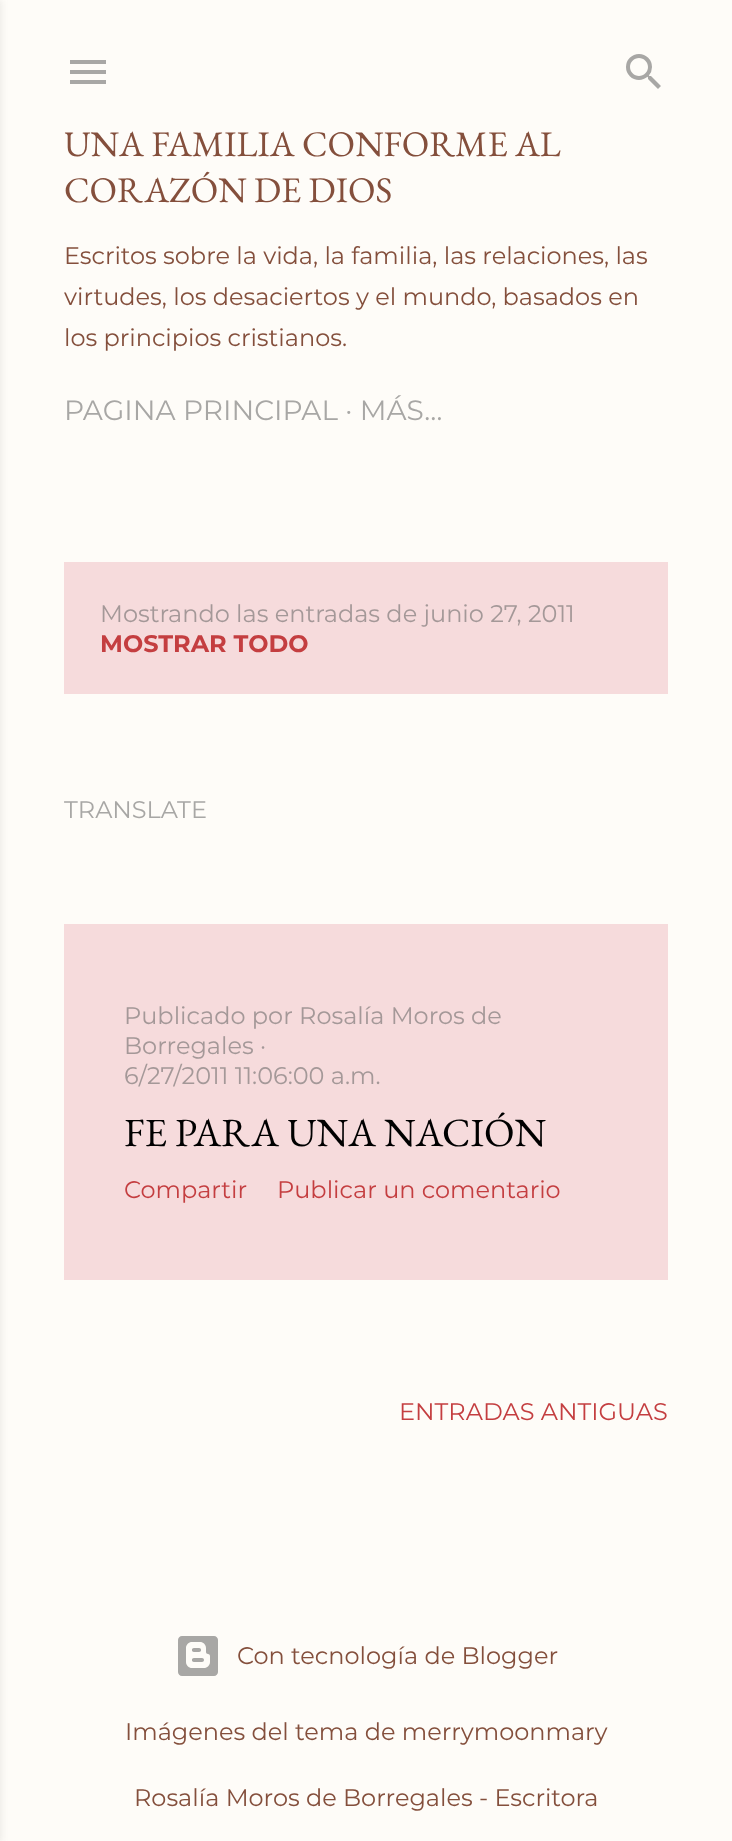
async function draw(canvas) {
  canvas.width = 732
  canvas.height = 1841
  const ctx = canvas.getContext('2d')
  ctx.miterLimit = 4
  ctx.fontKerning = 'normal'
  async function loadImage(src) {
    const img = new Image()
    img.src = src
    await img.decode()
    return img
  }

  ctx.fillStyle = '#fefcf8'
  ctx.fillRect(0, 0, 732, 1841)
  ctx.fillStyle = '#5e5e5e1a'
  ctx.filter = 'blur(3px)'
  ctx.beginPath()
  ctx.rect(-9, 0, 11, 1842)
  ctx.fill()
  ctx.filter = 'none'
  ctx.drawImage(await loadImage('image0.png'), 70, 60, 36, 24)
  ctx.drawImage(await loadImage('image1.png'), 626, 54, 35, 35)
  ctx.font = '36px EB Garamond'
  ctx.fillStyle = '#844f3c'
  ctx.fillText('UNA FAMILIA CONFORME AL', 64, 156)
  ctx.fillText('CORAZÓN DE DIOS', 64, 202)
  ctx.font = '24px Montserrat'
  ctx.fillText('Escritos sobre la vida, la familia, las relaciones, las', 64, 264)
  ctx.fillText('virtudes, los desaciertos y el mundo, basados en', 64, 305)
  ctx.fillText('los principios cristianos.', 64, 346)
  ctx.font = '28px Montserrat'
  ctx.fillStyle = '#a8a7a5'
  ctx.fillText('PAGINA PRINCIPAL · MÁS…', 64, 420)
  ctx.fillStyle = '#f6dbdc'
  ctx.fillRect(64, 562, 604, 132)
  ctx.font = '24px Montserrat'
  ctx.fillStyle = '#a49898'
  ctx.fillText('Mostrando las entradas de junio 27, 2011', 100, 622)
  ctx.font = 'bold 24px Montserrat'
  ctx.fillStyle = '#c43e40'
  ctx.fillText('MOSTRAR TODO', 100, 652)
  ctx.font = '24px Montserrat'
  ctx.fillStyle = '#a8a7a5'
  ctx.fillText('TRANSLATE', 64, 818)
  ctx.fillStyle = '#f6dbdc'
  ctx.fillRect(64, 924, 604, 356)
  ctx.fillStyle = '#a49898'
  ctx.fillText('Publicado por Rosalía Moros de', 124, 1024)
  ctx.fillText('Borregales ·', 124, 1054)
  ctx.fillText('6/27/2011 11:06:00 a.m.', 124, 1084)
  ctx.font = '40px EB Garamond'
  ctx.fillStyle = '#000'
  ctx.fillText('FE PARA UNA NACIÓN', 124, 1146)
  ctx.font = '24px Montserrat'
  ctx.fillStyle = '#c43e40'
  ctx.fillText('Compartir', 124, 1198)
  ctx.fillText('Publicar un comentario', 277, 1198)
  ctx.fillText('ENTRADAS ANTIGUAS', 399, 1420)
  ctx.drawImage(await loadImage('image2.png'), 178, 1636, 40, 40)
  ctx.fillStyle = '#844f3c'
  ctx.fillText('Con tecnología de Blogger', 237, 1664)
  ctx.fillText('Imágenes del tema de merrymoonmary', 125, 1740)
  ctx.fillText('Rosalía Moros de Borregales - Escritora', 134, 1806)
}

draw(document.querySelector('canvas'))
